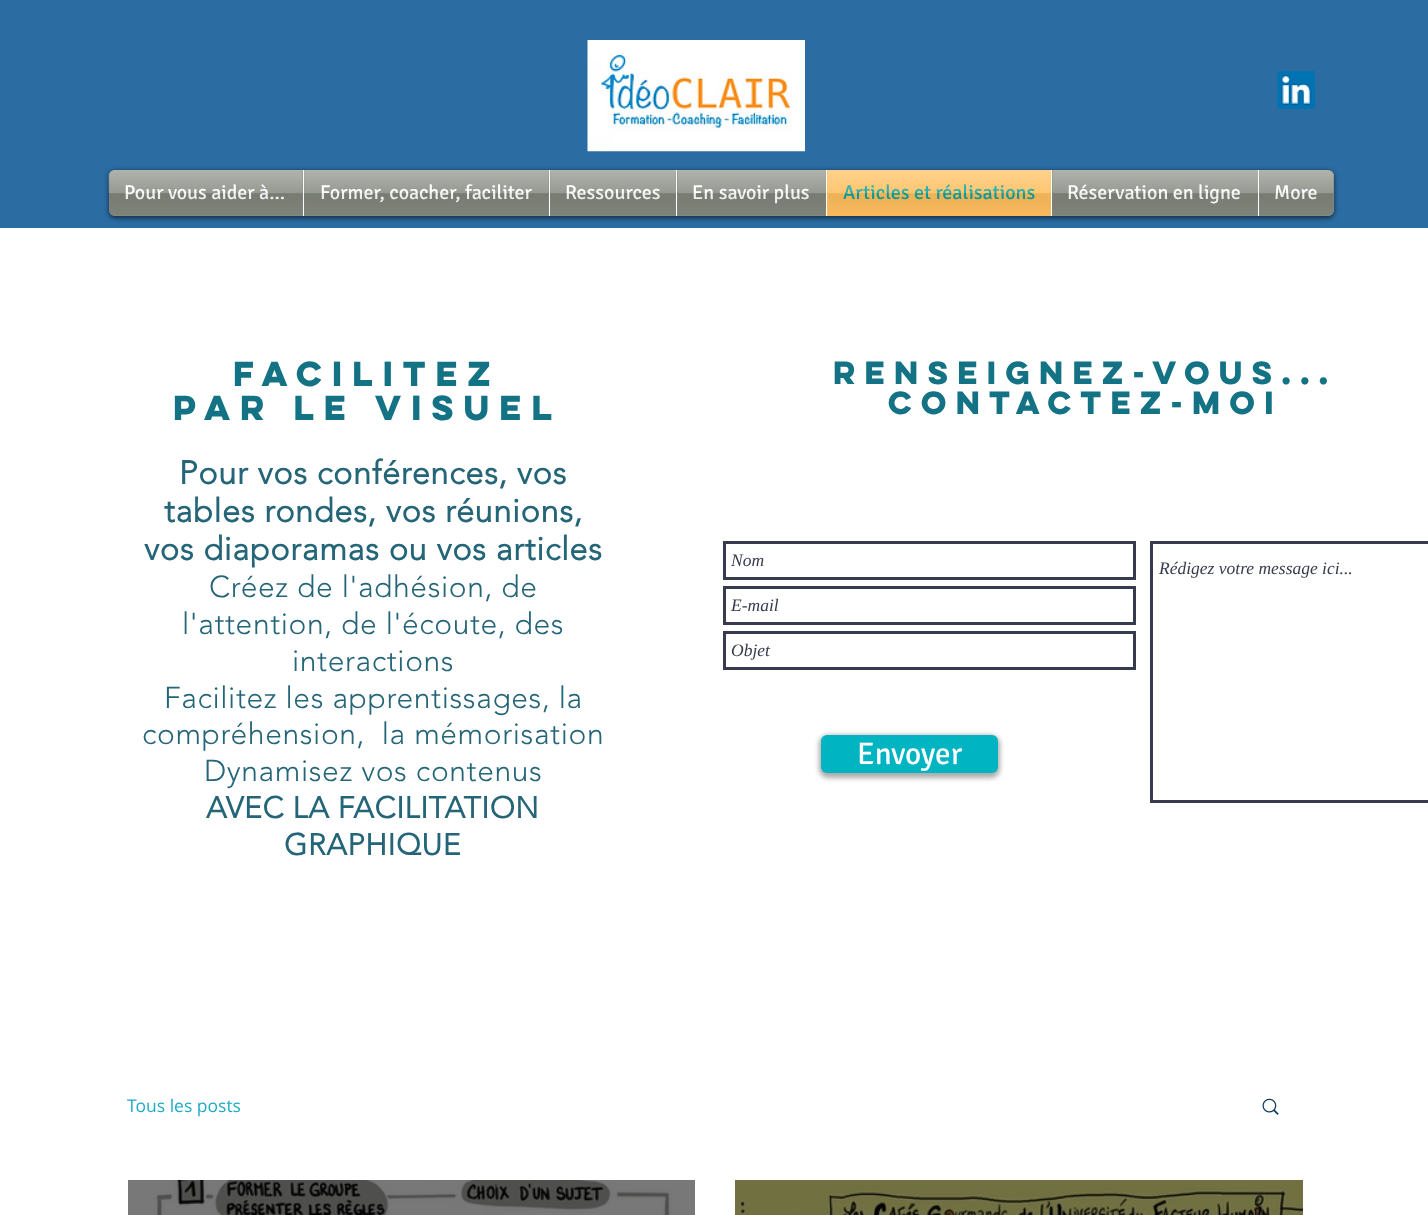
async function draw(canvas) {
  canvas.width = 1428
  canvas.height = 1215
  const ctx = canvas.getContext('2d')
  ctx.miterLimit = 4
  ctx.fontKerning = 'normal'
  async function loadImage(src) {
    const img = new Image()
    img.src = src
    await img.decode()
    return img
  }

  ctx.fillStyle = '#fff'
  ctx.fillRect(0, 0, 1428, 1215)
  ctx.fillStyle = '#2b6ca3'
  ctx.fillRect(0, 0, 1428, 228)
  ctx.drawImage(await loadImage('image0.png'), 587, 40, 218, 112)
  ctx.drawImage(await loadImage('image1.png'), 1277, 71, 38, 38)
  ctx.save()
  ctx.beginPath()
  ctx.moveTo(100, 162)
  ctx.lineTo(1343, 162)
  ctx.lineTo(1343, 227)
  ctx.lineTo(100, 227)
  ctx.closePath()
  ctx.moveTo(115, 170)
  ctx.lineTo(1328, 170)
  ctx.bezierCurveTo(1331.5, 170, 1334, 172.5, 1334, 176)
  ctx.lineTo(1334, 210)
  ctx.bezierCurveTo(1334, 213.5, 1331.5, 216, 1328, 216)
  ctx.lineTo(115, 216)
  ctx.bezierCurveTo(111.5, 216, 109, 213.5, 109, 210)
  ctx.lineTo(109, 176)
  ctx.bezierCurveTo(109, 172.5, 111.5, 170, 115, 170)
  ctx.closePath()
  ctx.clip('evenodd')
  ctx.fillStyle = '#00000099'
  ctx.filter = 'blur(2.5px)'
  ctx.beginPath()
  ctx.roundRect(109, 171, 1225, 47, 6)
  ctx.fill()
  ctx.filter = 'none'
  ctx.restore()
  ctx.fillStyle = '#8d8c7cb3'
  ctx.beginPath()
  ctx.roundRect(109, 170, 1225, 46, 6)
  ctx.fill()
  ctx.drawImage(await loadImage('image2.png'), 108, 170, 1226, 45)
  ctx.beginPath()
  ctx.roundRect(109, 170, 194, 46, [6, 0, 0, 6])
  ctx.fill()
  ctx.font = '20px Signika'
  ctx.fillStyle = '#fff'
  ctx.fillText('Pour vous aider à...', 124, 199)
  ctx.drawImage(await loadImage('image3.png'), 108, 170, 195, 45)
  ctx.fillStyle = '#8d8c7cb3'
  ctx.fillRect(304, 170, 245, 46)
  ctx.fillStyle = '#fff'
  ctx.fillRect(303, 170, 1, 46)
  ctx.fillText('Former, coacher, faciliter', 320, 199)
  ctx.drawImage(await loadImage('image4.png'), 303, 170, 246, 45)
  ctx.fillStyle = '#8d8c7cb3'
  ctx.fillRect(550, 170, 126, 46)
  ctx.fillStyle = '#fff'
  ctx.fillRect(549, 170, 1, 46)
  ctx.fillText('Ressources', 565, 199)
  ctx.drawImage(await loadImage('image5.png'), 550, 170, 126, 45)
  ctx.fillStyle = '#8d8c7cb3'
  ctx.fillRect(677, 170, 149, 46)
  ctx.fillStyle = '#fff'
  ctx.fillRect(676, 170, 1, 46)
  ctx.fillText('En savoir plus', 692, 199)
  ctx.drawImage(await loadImage('image6.png'), 677, 170, 149, 45)
  ctx.fillStyle = '#ffbf5f'
  ctx.fillRect(827, 170, 224, 46)
  ctx.fillStyle = '#fff'
  ctx.fillRect(826, 170, 1, 46)
  ctx.fillStyle = '#08a39e'
  ctx.fillText('Articles et réalisations', 843, 199)
  ctx.drawImage(await loadImage('image7.png'), 827, 170, 224, 46)
  ctx.fillStyle = '#8d8c7cb3'
  ctx.fillRect(1052, 170, 206, 46)
  ctx.fillStyle = '#fff'
  ctx.fillRect(1051, 170, 1, 46)
  ctx.fillText('Réservation en ligne', 1067, 199)
  ctx.drawImage(await loadImage('image8.png'), 1052, 170, 206, 45)
  ctx.fillStyle = '#8d8c7cb3'
  ctx.beginPath()
  ctx.roundRect(1258, 170, 76, 46, [0, 6, 6, 0])
  ctx.fill()
  ctx.fillStyle = '#fff'
  ctx.fillRect(1258, 170, 1, 46)
  ctx.fillText('More', 1274, 199)
  ctx.drawImage(await loadImage('image9.png'), 1258, 170, 76, 45)
  ctx.letterSpacing = '3.1px'
  ctx.font = 'bold 31.25px "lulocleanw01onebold"'
  ctx.fillStyle = '#147285'
  ctx.fillText('facilitez', 233, 386)
  ctx.fillText('par le visuel', 173, 420)
  ctx.letterSpacing = '0.65px'
  ctx.font = 'bold 32.5px "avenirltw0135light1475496"'
  ctx.fillStyle = '#256578'
  ctx.fillText('Pour vos conférences, vos', 179, 484)
  ctx.fillText('tables rondes, vos réunions,', 164, 522)
  ctx.fillText('vos diaporamas ou vos articles', 144, 560)
  ctx.letterSpacing = '0.6px'
  ctx.font = '300 30px "avenirltw0135light1475496"'
  ctx.fillText('Créez de l\'adhésion, de', 209, 597)
  ctx.fillText('l\'attention, de l\'écoute, des', 182, 634)
  ctx.fillText('interactions', 292, 671)
  ctx.fillText('Facilitez les apprentissages, la', 164, 708)
  ctx.fillText('compréhension,  la mémorisation', 142, 744)
  ctx.fillText('Dynamisez vos contenus', 204, 781)
  ctx.font = 'bold 30px "avenirltw0135light1475496"'
  ctx.fillText('AVEC LA FACILITATION', 206, 818)
  ctx.fillText('GRAPHIQUE', 284, 855)
  ctx.letterSpacing = '2.9px'
  ctx.font = 'bold 28.75px "lulocleanw01onebold"'
  ctx.fillStyle = '#147285'
  ctx.fillText('RENSEIGNEZ-VOUS...', 833, 384)
  ctx.fillText('CONTACTEZ-MOI', 888, 414)
  ctx.strokeStyle = '#373b4d'
  ctx.lineWidth = 3
  ctx.strokeRect(724.5, 542.5, 410, 36)
  ctx.letterSpacing = '0px'
  ctx.font = 'italic 17.5px Liberation Serif'
  ctx.fillStyle = '#373b4d'
  ctx.fillText('Nom', 731, 566)
  ctx.strokeRect(1151.5, 542.5, 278, 259)
  ctx.fillText('Rédigez votre message ici...', 1159, 574)
  ctx.strokeRect(724.5, 587.5, 410, 36)
  ctx.fillText('E-mail', 731, 611)
  ctx.strokeRect(724.5, 632.5, 410, 36)
  ctx.fillText('Objet', 731, 656)
  ctx.fillStyle = '#00000054'
  ctx.filter = 'blur(2.5px)'
  ctx.beginPath()
  ctx.roundRect(819, 735, 181, 43, 9)
  ctx.fill()
  ctx.filter = 'none'
  ctx.fillStyle = '#01b4c1'
  ctx.beginPath()
  ctx.roundRect(821, 735, 177, 38, 6)
  ctx.fill()
  ctx.font = '31.25px Signika'
  ctx.fillStyle = '#fff'
  ctx.fillText('Envoyer', 857, 764)
  ctx.font = '17.5px Open Sans'
  ctx.fillStyle = '#1eabc7'
  ctx.fillText('Tous les posts', 127, 1112)
  ctx.drawImage(await loadImage('image10.png'), 1262, 1098, 17, 17)
  ctx.drawImage(await loadImage('image11.png'), 128, 1180, 567, 35)
  ctx.drawImage(await loadImage('image12.png'), 735, 1180, 568, 35)
}

draw(document.querySelector('canvas'))
